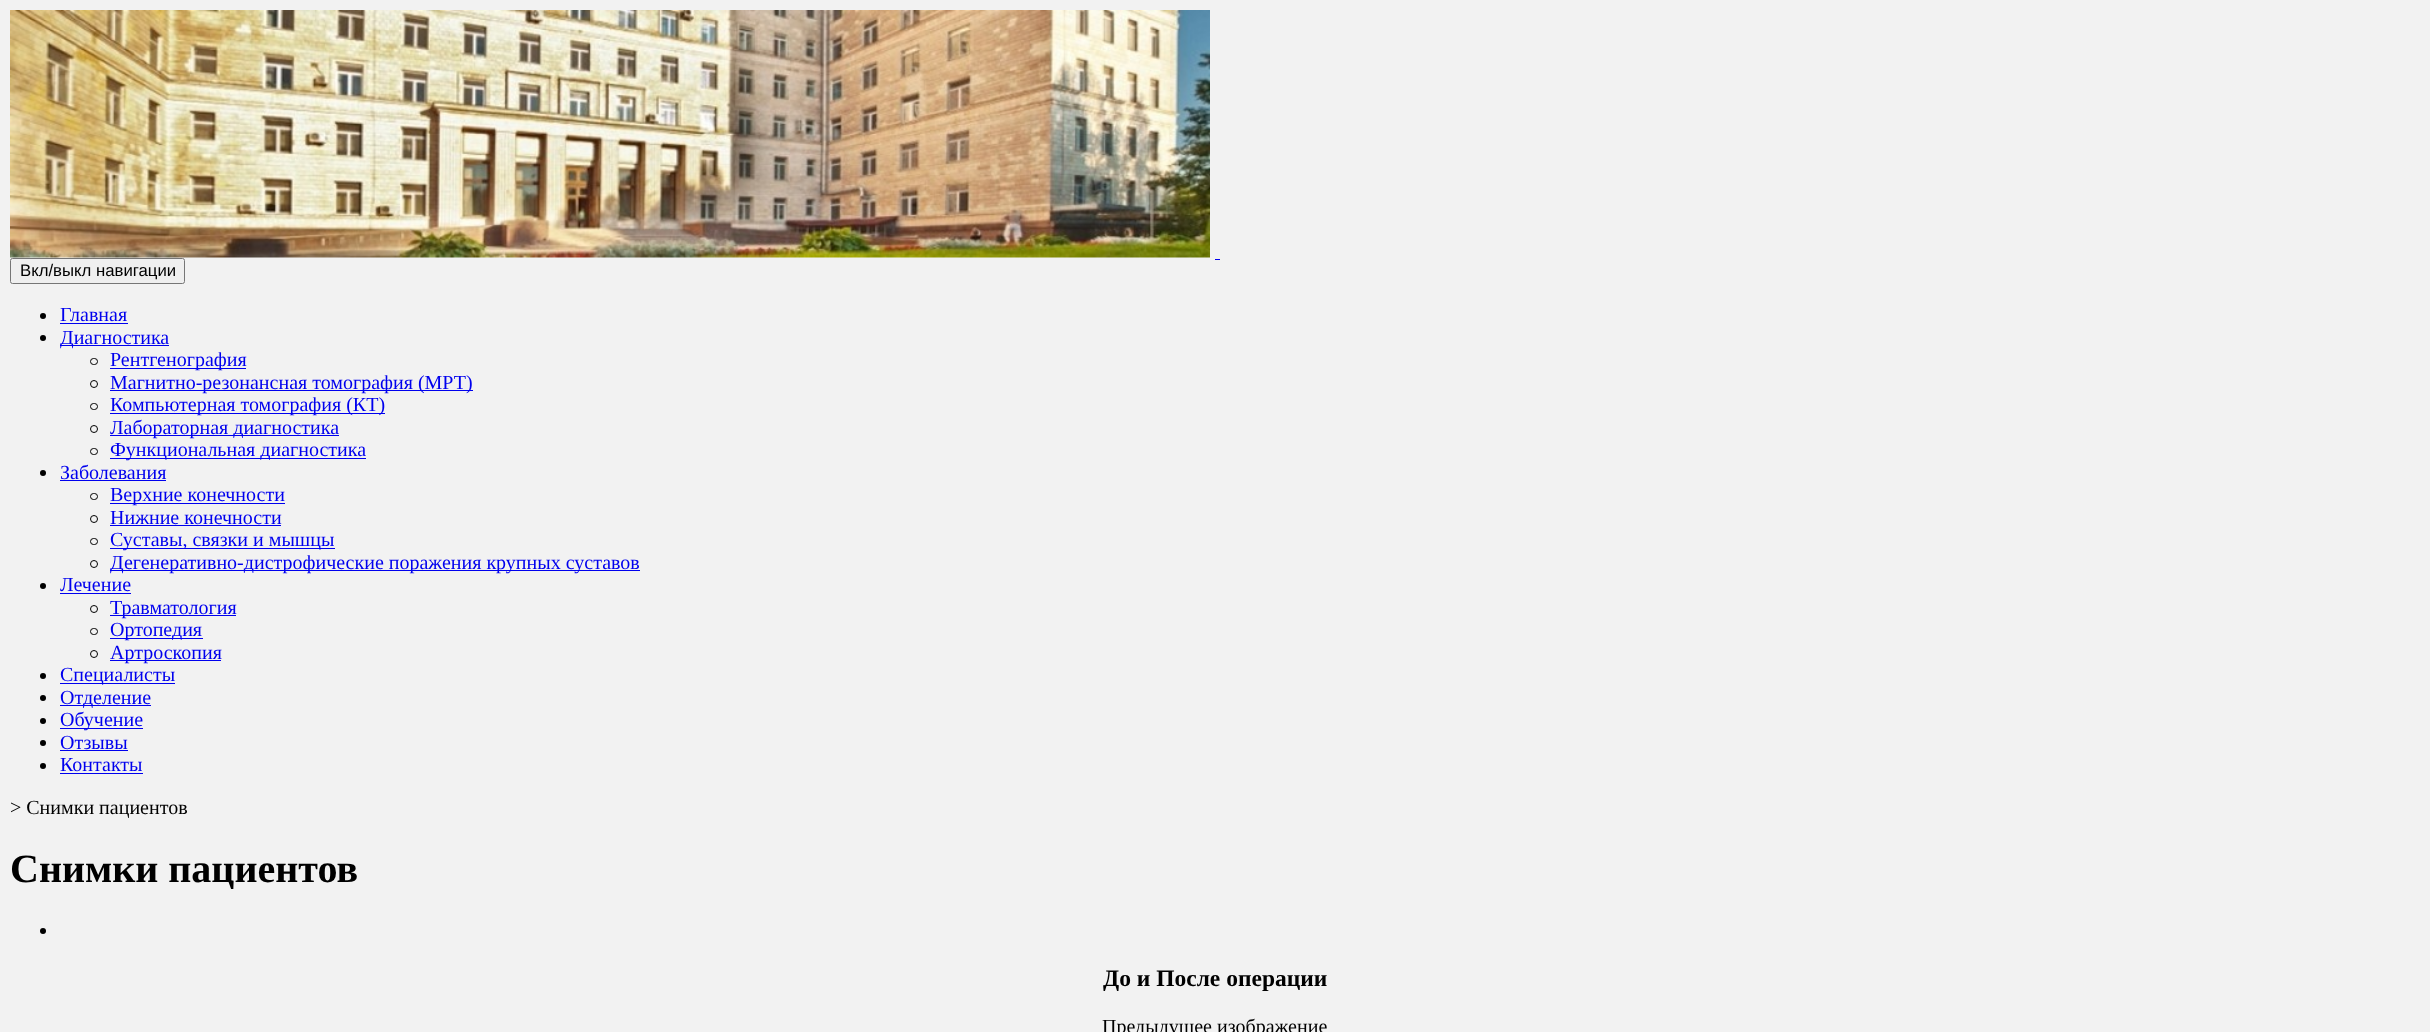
async function draw(canvas) {
  canvas.width = 2430
  canvas.height = 1032
  const ctx = canvas.getContext('2d')
  ctx.miterLimit = 4
  ctx.fontKerning = 'normal'
  async function loadImage(src) {
    const img = new Image()
    img.src = src
    await img.decode()
    return img
  }

  ctx.fillStyle = '#f2f2f2'
  ctx.fillRect(0, 0, 2430, 1032)
  ctx.drawImage(await loadImage('image0.png'), 10, 10, 1200, 248)
  ctx.fillStyle = '#00e'
  ctx.fillRect(1215, 259, 5, 1)
  ctx.fillStyle = '#efefef'
  ctx.beginPath()
  ctx.roundRect(10.5, 258.5, 174, 25, 2)
  ctx.fill()
  ctx.strokeStyle = '#767676'
  ctx.stroke()
  ctx.font = '16.75px Liberation Sans'
  ctx.fillStyle = '#000'
  ctx.fillText('Вкл/выкл навигации', 20, 276)
  ctx.beginPath()
  ctx.arc(43, 316, 3, 0, 2 * Math.PI)
  ctx.fill()
  ctx.font = '20px Liberation Serif'
  ctx.fillStyle = '#00e'
  ctx.fillText('Главная', 60, 321)
  ctx.fillRect(60, 323, 68, 1)
  ctx.fillStyle = '#000'
  ctx.beginPath()
  ctx.arc(43, 338, 3, 0, 2 * Math.PI)
  ctx.fill()
  ctx.fillStyle = '#00e'
  ctx.fillRect(60, 345, 109, 1)
  ctx.fillText('Диагностика', 60, 344)
  ctx.beginPath()
  ctx.roundRect(90.5, 358.5, 7, 6, 3)
  ctx.strokeStyle = '#000'
  ctx.stroke()
  ctx.fillRect(110, 368, 136, 1)
  ctx.fillText('Рентгенография', 110, 366)
  ctx.beginPath()
  ctx.arc(94, 384, 3.5, 0, 2 * Math.PI)
  ctx.stroke()
  ctx.fillRect(110, 390, 363, 1)
  ctx.fillText('Магнитно-резонансная томография (МРТ)', 110, 389)
  ctx.beginPath()
  ctx.roundRect(90.5, 403.5, 7, 6, 3)
  ctx.stroke()
  ctx.fillRect(110, 413, 275, 1)
  ctx.fillText('Компьютерная томография (КТ)', 110, 411)
  ctx.beginPath()
  ctx.arc(94, 429, 3.5, 0, 2 * Math.PI)
  ctx.stroke()
  ctx.fillRect(110, 435, 229, 1)
  ctx.fillText('Лабораторная диагностика', 110, 434)
  ctx.beginPath()
  ctx.roundRect(90.5, 448.5, 7, 6, 3)
  ctx.stroke()
  ctx.fillRect(110, 458, 256, 1)
  ctx.fillText('Функциональная диагностика', 110, 456)
  ctx.fillStyle = '#000'
  ctx.beginPath()
  ctx.arc(43, 473, 3, 0, 2 * Math.PI)
  ctx.fill()
  ctx.fillStyle = '#00e'
  ctx.fillText('Заболевания', 60, 479)
  ctx.fillRect(60, 480, 106, 1)
  ctx.beginPath()
  ctx.roundRect(90.5, 493.5, 7, 6, 3)
  ctx.stroke()
  ctx.fillRect(110, 503, 175, 1)
  ctx.fillText('Верхние конечности', 110, 501)
  ctx.beginPath()
  ctx.arc(94, 519, 3.5, 0, 2 * Math.PI)
  ctx.stroke()
  ctx.fillText('Нижние конечности', 110, 524)
  ctx.fillRect(110, 525, 171, 1)
  ctx.beginPath()
  ctx.roundRect(90.5, 538.5, 7, 6, 3)
  ctx.stroke()
  ctx.fillRect(110, 548, 225, 1)
  ctx.fillText('Суставы, связки и мышцы', 110, 546)
  ctx.beginPath()
  ctx.arc(94, 564, 3.5, 0, 2 * Math.PI)
  ctx.stroke()
  ctx.fillRect(110, 570, 530, 1)
  ctx.fillText('Дегенеративно-дистрофические поражения крупных суставов', 110, 569)
  ctx.fillStyle = '#000'
  ctx.beginPath()
  ctx.arc(43, 586, 3, 0, 2 * Math.PI)
  ctx.fill()
  ctx.fillStyle = '#00e'
  ctx.fillText('Лечение', 60, 591)
  ctx.fillRect(60, 593, 71, 1)
  ctx.beginPath()
  ctx.arc(94, 609, 3.5, 0, 2 * Math.PI)
  ctx.stroke()
  ctx.fillRect(110, 615, 126, 1)
  ctx.fillText('Травматология', 110, 614)
  ctx.beginPath()
  ctx.roundRect(90.5, 628.5, 7, 6, 3)
  ctx.stroke()
  ctx.fillRect(110, 638, 93, 1)
  ctx.fillText('Ортопедия', 110, 636)
  ctx.beginPath()
  ctx.arc(94, 654, 3.5, 0, 2 * Math.PI)
  ctx.stroke()
  ctx.fillRect(110, 660, 111, 1)
  ctx.fillText('Артроскопия', 110, 659)
  ctx.fillStyle = '#000'
  ctx.beginPath()
  ctx.arc(43, 676, 3, 0, 2 * Math.PI)
  ctx.fill()
  ctx.fillStyle = '#00e'
  ctx.fillRect(60, 683, 115, 1)
  ctx.fillText('Специалисты', 60, 681)
  ctx.fillStyle = '#000'
  ctx.beginPath()
  ctx.arc(43, 698, 3, 0, 2 * Math.PI)
  ctx.fill()
  ctx.fillStyle = '#00e'
  ctx.fillRect(60, 705, 91, 1)
  ctx.fillText('Отделение', 60, 704)
  ctx.fillStyle = '#000'
  ctx.beginPath()
  ctx.arc(43, 721, 3, 0, 2 * Math.PI)
  ctx.fill()
  ctx.fillStyle = '#00e'
  ctx.fillRect(60, 728, 83, 1)
  ctx.fillText('Обучение', 60, 726)
  ctx.fillStyle = '#000'
  ctx.beginPath()
  ctx.arc(43, 743, 3, 0, 2 * Math.PI)
  ctx.fill()
  ctx.fillStyle = '#00e'
  ctx.fillText('Отзывы', 60, 749)
  ctx.fillRect(60, 750, 68, 1)
  ctx.fillStyle = '#000'
  ctx.beginPath()
  ctx.arc(43, 766, 3, 0, 2 * Math.PI)
  ctx.fill()
  ctx.fillStyle = '#00e'
  ctx.fillText('Контакты', 60, 771)
  ctx.fillRect(60, 773, 83, 1)
  ctx.fillStyle = '#000'
  ctx.fillText('> Снимки пациентов', 10, 814)
  ctx.font = 'bold 40px Liberation Serif'
  ctx.fillText('Снимки пациентов', 10, 882)
  ctx.beginPath()
  ctx.arc(43, 931, 3, 0, 2 * Math.PI)
  ctx.fill()
  ctx.font = 'bold 23.5px Liberation Serif'
  ctx.fillText('До и После операции', 1103, 986)
  ctx.font = '20px Liberation Serif'
  ctx.fillText('Предыдущее изображение', 1102, 1033)
}

draw(document.querySelector('canvas'))
